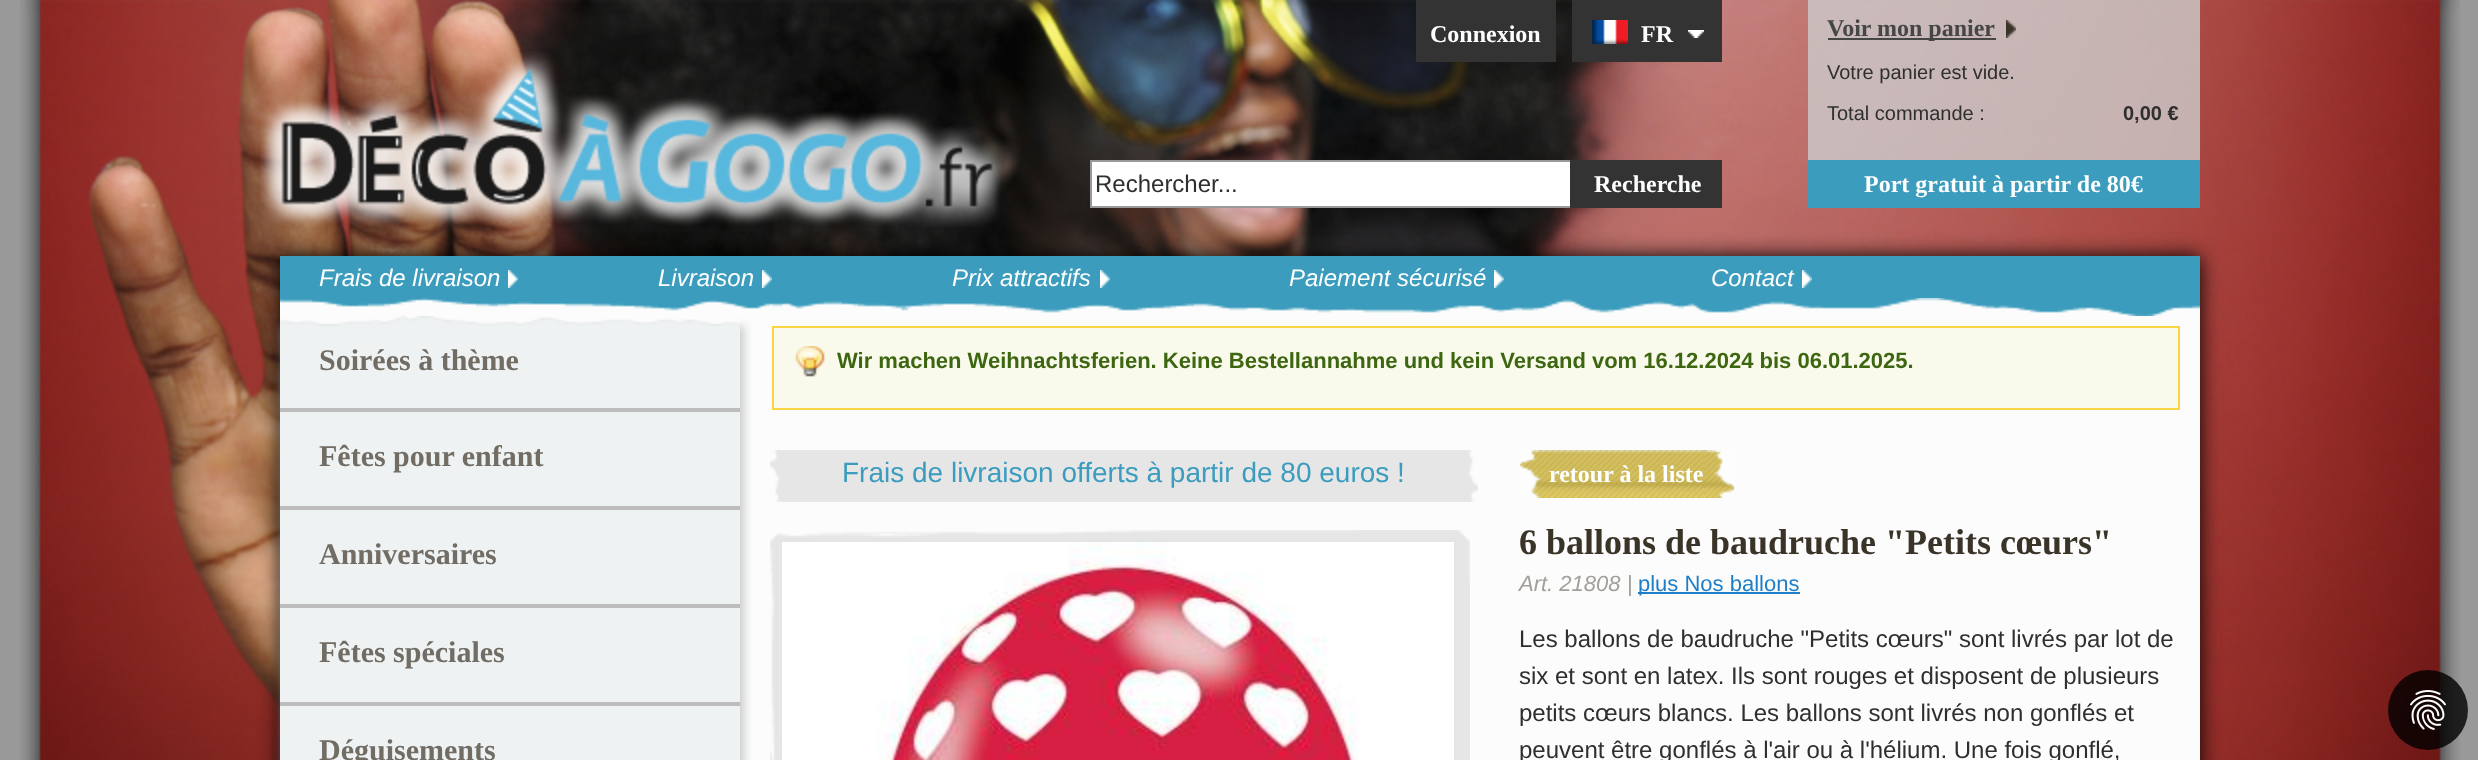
async function draw(canvas) {
  canvas.width = 2478
  canvas.height = 760
  const ctx = canvas.getContext('2d')
  ctx.miterLimit = 4
  ctx.fontKerning = 'normal'
  async function loadImage(src) {
    const img = new Image()
    img.src = src
    await img.decode()
    return img
  }

  ctx.fillStyle = '#999'
  ctx.fillRect(0, 0, 2478, 760)
  ctx.drawImage(await loadImage('image0.png'), 20, 0, 2440, 760)
  ctx.fillStyle = '#333'
  ctx.fillRect(1416, 0, 140, 62)
  ctx.font = 'bold 24px Liberation Serif'
  ctx.fillStyle = '#fdfefe'
  ctx.fillText('Connexion', 1430, 42)
  ctx.fillStyle = '#333'
  ctx.fillRect(1572, 0, 150, 62)
  ctx.drawImage(await loadImage('image1.png'), 1592, 20, 36, 24)
  ctx.drawImage(await loadImage('image2.png'), 1688, 30, 16, 8)
  ctx.fillStyle = '#fdfefe'
  ctx.fillText('FR', 1641, 42)
  ctx.fillStyle = '#cccccccc'
  ctx.fillRect(1808, 0, 392, 160)
  ctx.fillStyle = '#464646'
  ctx.fillRect(1828, 38, 168, 2)
  ctx.fillText('Voir mon panier', 1827, 36)
  ctx.drawImage(await loadImage('image3.png'), 2006, 20, 10, 18)
  ctx.font = '20px Liberation Sans'
  ctx.fillStyle = '#2f2f2f'
  ctx.fillText('Votre panier est vide.', 1827, 79)
  ctx.fillText('Total commande :', 1827, 120)
  ctx.font = 'bold 20px Liberation Sans'
  ctx.fillText('0,00 €', 2123, 120)
  ctx.fillStyle = '#3b9cbd'
  ctx.fillRect(1808, 160, 392, 48)
  ctx.font = 'bold 24px Liberation Serif'
  ctx.fillStyle = '#fdfefe'
  ctx.fillText('Port gratuit à partir de 80€', 1864, 192)
  ctx.fillStyle = '#000'
  ctx.filter = 'blur(10px)'
  ctx.beginPath()
  ctx.rect(280, 256, 1920, 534)
  ctx.fill()
  ctx.filter = 'none'
  ctx.drawImage(await loadImage('image4.png'), 260, 51, 752, 176)
  ctx.fillStyle = '#fff'
  ctx.fillRect(1092, 162, 478, 44)
  ctx.fillStyle = '#999'
  ctx.fillRect(1090, 160, 480, 2)
  ctx.fillRect(1090, 206, 480, 2)
  ctx.fillRect(1090, 160, 2, 48)
  ctx.font = '24px Liberation Sans'
  ctx.fillStyle = '#2f2f2f'
  ctx.fillText('Rechercher...', 1095, 192)
  ctx.fillStyle = '#333'
  ctx.fillRect(1570, 160, 152, 48)
  ctx.font = 'bold 24px Liberation Serif'
  ctx.fillStyle = '#fdfefe'
  ctx.fillText('Recherche', 1594, 192)
  ctx.fillStyle = '#fbfcfb'
  ctx.fillRect(740, 316, 1460, 444)
  ctx.fillStyle = '#3b9cbd'
  ctx.fillRect(280, 256, 1920, 60)
  ctx.drawImage(await loadImage('image5.png'), 280, 298, 1920, 18)
  ctx.font = 'italic 24px Liberation Sans'
  ctx.fillStyle = '#fdfefe'
  ctx.fillText('Frais de livraison', 319, 286)
  ctx.drawImage(await loadImage('image6.png'), 508, 270, 10, 18)
  ctx.fillText('Livraison', 658, 286)
  ctx.drawImage(await loadImage('image6.png'), 762, 270, 10, 18)
  ctx.fillText('Prix attractifs', 952, 286)
  ctx.drawImage(await loadImage('image6.png'), 1100, 270, 10, 18)
  ctx.fillText('Paiement sécurisé', 1289, 286)
  ctx.drawImage(await loadImage('image6.png'), 1494, 270, 10, 18)
  ctx.fillText('Contact', 1711, 286)
  ctx.drawImage(await loadImage('image6.png'), 1802, 270, 10, 18)
  ctx.fillStyle = '#c9cac9'
  ctx.filter = 'blur(5px)'
  ctx.beginPath()
  ctx.rect(284, 326, 460, 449)
  ctx.fill()
  ctx.filter = 'none'
  ctx.fillStyle = '#eff2f3'
  ctx.fillRect(280, 317, 460, 91)
  ctx.drawImage(await loadImage('image7.png'), 280, 316, 460, 10)
  ctx.fillStyle = '#bdbdbd'
  ctx.fillRect(280, 408, 460, 4)
  ctx.font = 'bold 30px Liberation Serif'
  ctx.fillStyle = '#716c64'
  ctx.fillText('Soirées à thème', 319, 370)
  ctx.fillStyle = '#eff2f3'
  ctx.fillRect(280, 412, 460, 94)
  ctx.fillStyle = '#bdbdbd'
  ctx.fillRect(280, 506, 460, 4)
  ctx.fillStyle = '#716c64'
  ctx.fillText('Fêtes pour enfant', 319, 466)
  ctx.fillStyle = '#eff2f3'
  ctx.fillRect(280, 510, 460, 94)
  ctx.fillStyle = '#bdbdbd'
  ctx.fillRect(280, 604, 460, 4)
  ctx.fillStyle = '#716c64'
  ctx.fillText('Anniversaires', 319, 564)
  ctx.fillStyle = '#eff2f3'
  ctx.fillRect(280, 608, 460, 94)
  ctx.fillStyle = '#bdbdbd'
  ctx.fillRect(280, 702, 460, 4)
  ctx.fillStyle = '#716c64'
  ctx.fillText('Fêtes spéciales', 319, 662)
  ctx.fillStyle = '#eff2f3'
  ctx.fillRect(280, 706, 460, 54)
  ctx.fillStyle = '#716c64'
  ctx.fillText('Déguisements', 319, 760)
  ctx.fillStyle = '#fafaec'
  ctx.fillRect(774, 328, 1404, 80)
  ctx.drawImage(await loadImage('image8.png'), 795, 346, 30, 31)
  ctx.strokeStyle = '#fcd344'
  ctx.lineWidth = 2
  ctx.strokeRect(773, 327, 1406, 82)
  ctx.font = 'bold 22px Liberation Sans'
  ctx.fillStyle = '#3d6611'
  ctx.fillText('Wir machen Weihnachtsferien. Keine Bestellannahme und kein Versand vom 16.12.2024 bis 06.01.2025.', 837, 368)
  ctx.drawImage(await loadImage('image9.png'), 770, 450, 708, 52)
  ctx.font = '28px Liberation Sans'
  ctx.fillStyle = '#3b9cbd'
  ctx.fillText('Frais de livraison offerts à partir de 80 euros !', 842, 482)
  ctx.drawImage(await loadImage('image10.png'), 770, 530, 700, 230)
  ctx.drawImage(await loadImage('image11.png'), 782, 542, 672, 218)
  ctx.drawImage(await loadImage('image12.png'), 1704, 450, 30, 48)
  ctx.drawImage(await loadImage('image13.png'), 1520, 450, 184, 48)
  ctx.font = 'bold 24px Liberation Serif'
  ctx.fillStyle = '#fdfefe'
  ctx.fillText('retour à la liste', 1549, 482)
  ctx.font = 'bold 36px Liberation Serif'
  ctx.fillStyle = '#3a3328'
  ctx.fillText('6 ballons de baudruche "Petits cœurs"', 1519, 554)
  ctx.font = 'italic 22px Liberation Sans'
  ctx.fillStyle = '#a29f9a'
  ctx.fillText('Art. 21808 |', 1519, 591)
  ctx.fillStyle = '#1e7ec8'
  ctx.fillRect(1638, 592, 162, 2)
  ctx.font = '22px Liberation Sans'
  ctx.fillText('plus Nos ballons', 1638, 591)
  ctx.font = '24px Liberation Sans'
  ctx.fillStyle = '#2f2f2f'
  ctx.fillText('Les ballons de baudruche "Petits cœurs" sont livrés par lot de', 1519, 647)
  ctx.fillText('six et sont en latex. Ils sont rouges et disposent de plusieurs', 1519, 684)
  ctx.fillText('petits cœurs blancs. Les ballons sont livrés non gonflés et', 1519, 721)
  ctx.fillText('peuvent être gonflés à l\'air ou à l\'hélium. Une fois gonflé,', 1519, 758)
  ctx.fillStyle = '#000000cc'
  ctx.beginPath()
  ctx.arc(2428, 710, 40, 0, 2 * Math.PI)
  ctx.fill()
  ctx.drawImage(await loadImage('image14.png'), 2410, 690, 36, 40)
}

draw(document.querySelector('canvas'))
